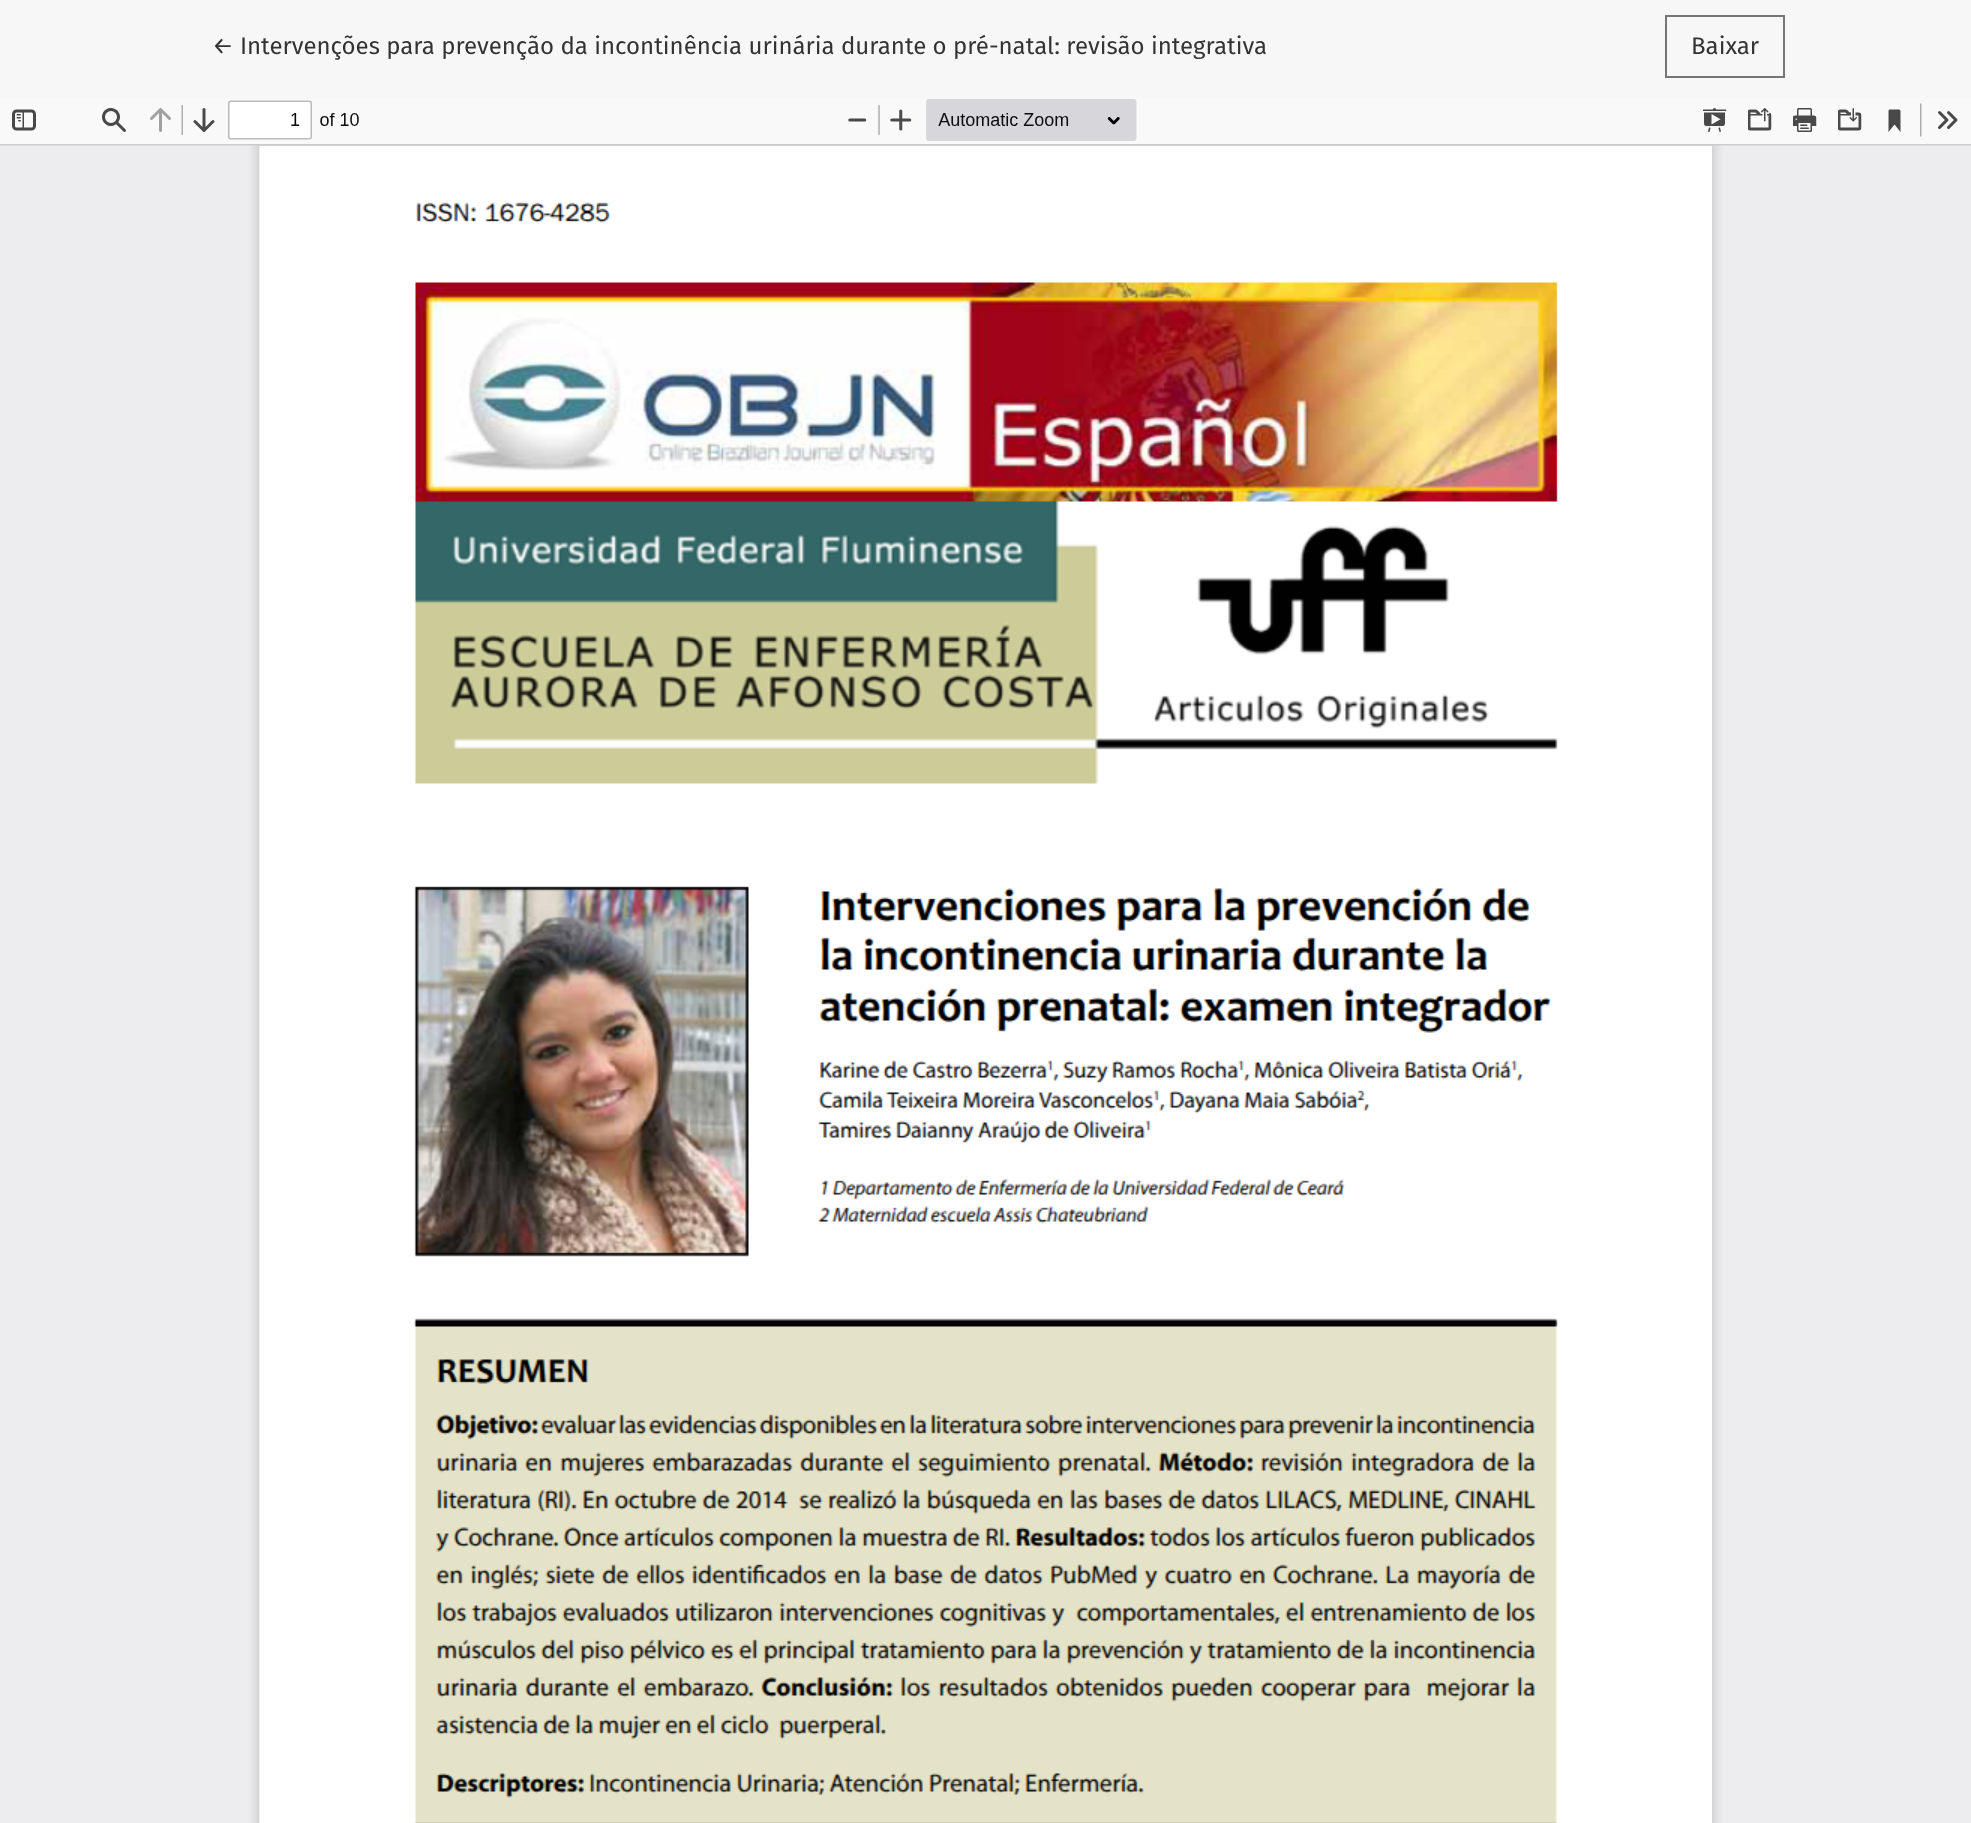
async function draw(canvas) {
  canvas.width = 1971
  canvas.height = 1823
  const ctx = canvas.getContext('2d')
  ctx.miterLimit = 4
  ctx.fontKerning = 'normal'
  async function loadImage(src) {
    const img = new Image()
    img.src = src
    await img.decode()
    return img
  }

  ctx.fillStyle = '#f7f7f7'
  ctx.fillRect(0, 0, 1971, 1823)
  ctx.font = '24px Fira Sans'
  ctx.fillStyle = '#333'
  ctx.fillText('← Intervenções para prevenção da incontinência urinária durante o pré-natal: revisão integrativa', 212, 54)
  ctx.strokeStyle = '#757575'
  ctx.lineWidth = 2
  ctx.strokeRect(1666, 16, 118, 61)
  ctx.fillText('Baixar', 1691, 54)
  ctx.drawImage(await loadImage('image0.png'), 0, 99, 1971, 1724)
}

draw(document.querySelector('canvas'))
